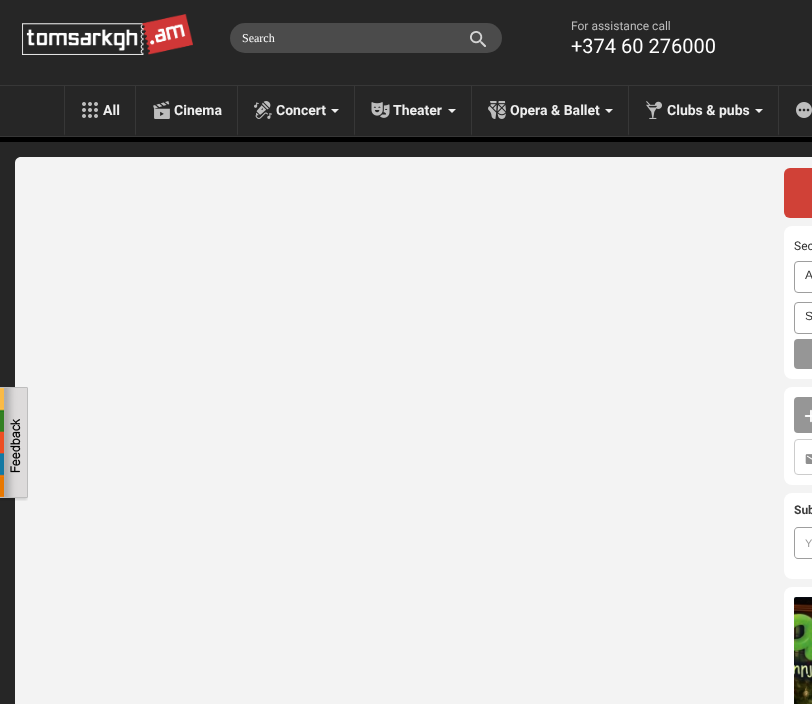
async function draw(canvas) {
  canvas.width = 812
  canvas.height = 704
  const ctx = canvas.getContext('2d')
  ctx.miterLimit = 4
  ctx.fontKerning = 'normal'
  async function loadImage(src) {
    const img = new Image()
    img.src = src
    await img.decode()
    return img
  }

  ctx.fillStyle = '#000'
  ctx.fillRect(0, 0, 812, 704)
  ctx.fillStyle = '#262626'
  ctx.fillRect(0, 0, 812, 136)
  ctx.drawImage(await loadImage('image0.png'), 22, 14, 171, 41)
  ctx.fillStyle = '#4b4b4b'
  ctx.beginPath()
  ctx.roundRect(230, 23, 272, 30, 15)
  ctx.fill()
  ctx.drawImage(await loadImage('image1.png'), 470, 31, 16, 16)
  ctx.font = '12px Liberation Serif'
  ctx.fillStyle = '#fff'
  ctx.fillText('Search', 242, 42)
  ctx.font = '12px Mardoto'
  ctx.fillStyle = '#bdbdbd'
  ctx.fillText('For assistance call', 571, 30)
  ctx.font = '20px Mardoto'
  ctx.fillStyle = '#fff'
  ctx.fillText('+374 60 276000', 571, 53)
  ctx.fillStyle = '#373737'
  ctx.fillRect(0, 85, 812, 1)
  ctx.fillRect(0, 136, 812, 1)
  ctx.beginPath()
  ctx.moveTo(136, 86)
  ctx.lineTo(136, 136)
  ctx.lineTo(135, 134)
  ctx.lineTo(135, 86)
  ctx.closePath()
  ctx.fill()
  ctx.beginPath()
  ctx.moveTo(64, 136)
  ctx.lineTo(64, 86)
  ctx.lineTo(65, 86)
  ctx.lineTo(65, 134)
  ctx.closePath()
  ctx.fill()
  ctx.drawImage(await loadImage('image2.png'), 82, 102, 16, 16)
  ctx.font = 'bold 14px Mardoto'
  ctx.fillStyle = '#eee'
  ctx.fillText('All', 103, 115)
  ctx.fillStyle = '#373737'
  ctx.beginPath()
  ctx.moveTo(238, 86)
  ctx.lineTo(238, 136)
  ctx.lineTo(237, 134)
  ctx.lineTo(237, 86)
  ctx.closePath()
  ctx.fill()
  ctx.drawImage(await loadImage('image3.png'), 153, 101, 17, 18)
  ctx.fillStyle = '#eee'
  ctx.fillText('Cinema', 174, 115)
  ctx.fillStyle = '#373737'
  ctx.beginPath()
  ctx.moveTo(355, 86)
  ctx.lineTo(355, 136)
  ctx.lineTo(354, 134)
  ctx.lineTo(354, 86)
  ctx.closePath()
  ctx.fill()
  ctx.drawImage(await loadImage('image4.png'), 254, 101, 18, 18)
  ctx.fillStyle = '#eee'
  ctx.fillText('Concert', 276, 115)
  ctx.beginPath()
  ctx.moveTo(331, 109)
  ctx.lineTo(339, 109)
  ctx.lineTo(335, 113)
  ctx.closePath()
  ctx.fill()
  ctx.fillStyle = '#373737'
  ctx.beginPath()
  ctx.moveTo(472, 86)
  ctx.lineTo(472, 136)
  ctx.lineTo(471, 134)
  ctx.lineTo(471, 86)
  ctx.closePath()
  ctx.fill()
  ctx.drawImage(await loadImage('image5.png'), 371, 102, 19, 16)
  ctx.fillStyle = '#eee'
  ctx.fillText('Theater', 393, 115)
  ctx.beginPath()
  ctx.moveTo(448, 109)
  ctx.lineTo(456, 109)
  ctx.lineTo(452, 113)
  ctx.closePath()
  ctx.fill()
  ctx.fillStyle = '#373737'
  ctx.beginPath()
  ctx.moveTo(629, 86)
  ctx.lineTo(629, 136)
  ctx.lineTo(628, 134)
  ctx.lineTo(628, 86)
  ctx.closePath()
  ctx.fill()
  ctx.drawImage(await loadImage('image6.png'), 488, 101, 18, 18)
  ctx.fillStyle = '#eee'
  ctx.fillText('Opera & Ballet', 510, 115)
  ctx.beginPath()
  ctx.moveTo(605, 109)
  ctx.lineTo(613, 109)
  ctx.lineTo(609, 113)
  ctx.closePath()
  ctx.fill()
  ctx.fillStyle = '#373737'
  ctx.beginPath()
  ctx.moveTo(779, 86)
  ctx.lineTo(779, 136)
  ctx.lineTo(778, 134)
  ctx.lineTo(778, 86)
  ctx.closePath()
  ctx.fill()
  ctx.drawImage(await loadImage('image7.png'), 646, 101, 16, 18)
  ctx.fillStyle = '#eee'
  ctx.fillText('Clubs & pubs', 667, 115)
  ctx.beginPath()
  ctx.moveTo(755, 109)
  ctx.lineTo(763, 109)
  ctx.lineTo(759, 113)
  ctx.closePath()
  ctx.fill()
  ctx.drawImage(await loadImage('image8.png'), 796, 102, 16, 16)
  ctx.fillStyle = '#262626'
  ctx.fillRect(0, 142, 812, 562)
  ctx.fillStyle = '#f3f3f3'
  ctx.beginPath()
  ctx.moveTo(21, 157)
  ctx.lineTo(812, 157)
  ctx.bezierCurveTo(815.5, 157, 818, 159.5, 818, 163)
  ctx.lineTo(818, 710)
  ctx.lineTo(15, 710)
  ctx.lineTo(15, 163)
  ctx.bezierCurveTo(15, 159.5, 17.5, 157, 21, 157)
  ctx.closePath()
  ctx.fill()
  ctx.drawImage(await loadImage('image9.png'), 0, 387, 28, 114)
  ctx.fillStyle = '#d04137'
  ctx.beginPath()
  ctx.roundRect(784, 168, 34, 50, 6)
  ctx.fill()
  ctx.fillStyle = '#fff'
  ctx.beginPath()
  ctx.roundRect(784, 226, 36, 153, 8)
  ctx.fill()
  ctx.font = '12px Mardoto'
  ctx.fillStyle = '#333'
  ctx.fillText('Sec', 794, 250)
  ctx.beginPath()
  ctx.roundRect(794.5, 261.5, 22, 31, 3.5)
  ctx.strokeStyle = '#9e9e9e'
  ctx.stroke()
  ctx.font = '12px Liberation Sans'
  ctx.fillText('A', 805, 279)
  ctx.beginPath()
  ctx.roundRect(794.5, 302.5, 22, 31, 3.5)
  ctx.stroke()
  ctx.fillText('S', 805, 320)
  ctx.fillStyle = '#969696'
  ctx.beginPath()
  ctx.roundRect(794, 339, 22, 30, 4)
  ctx.fill()
  ctx.fillStyle = '#fff'
  ctx.beginPath()
  ctx.roundRect(784, 387, 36, 98, 8)
  ctx.fill()
  ctx.fillStyle = '#969696'
  ctx.beginPath()
  ctx.roundRect(794, 397, 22, 36, 4)
  ctx.fill()
  ctx.drawImage(await loadImage('image10.png'), 804, 409, 8, 14)
  ctx.beginPath()
  ctx.roundRect(794.5, 439.5, 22, 35, 3.5)
  ctx.strokeStyle = '#ccc'
  ctx.stroke()
  ctx.drawImage(await loadImage('image11.png'), 805, 454, 7, 10)
  ctx.fillStyle = '#fff'
  ctx.beginPath()
  ctx.roundRect(784, 493, 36, 86, 8)
  ctx.fill()
  ctx.font = 'bold 12px Mardoto'
  ctx.fillStyle = '#3c3c3c'
  ctx.fillText('Sub', 794, 514)
  ctx.fillStyle = '#9e9e9e'
  ctx.beginPath()
  ctx.moveTo(798, 527)
  ctx.lineTo(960, 527)
  ctx.lineTo(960, 559)
  ctx.lineTo(798, 559)
  ctx.bezierCurveTo(796, 559, 794, 557, 794, 555)
  ctx.lineTo(794, 531)
  ctx.bezierCurveTo(794, 529, 796, 527, 798, 527)
  ctx.closePath()
  ctx.moveTo(798, 528)
  ctx.lineTo(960, 528)
  ctx.lineTo(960, 558)
  ctx.lineTo(798, 558)
  ctx.bezierCurveTo(796, 558, 795, 557, 795, 555)
  ctx.lineTo(795, 531)
  ctx.bezierCurveTo(795, 529, 796, 528, 798, 528)
  ctx.closePath()
  ctx.fill('evenodd')
  ctx.font = '11px Liberation Sans'
  ctx.fillStyle = '#999'
  ctx.fillText('Y', 805, 547)
  ctx.fillStyle = '#fff'
  ctx.beginPath()
  ctx.roundRect(784, 587, 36, 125, 8)
  ctx.fill()
  ctx.drawImage(await loadImage('image12.png'), 794, 597, 18, 107)
}

draw(document.querySelector('canvas'))
